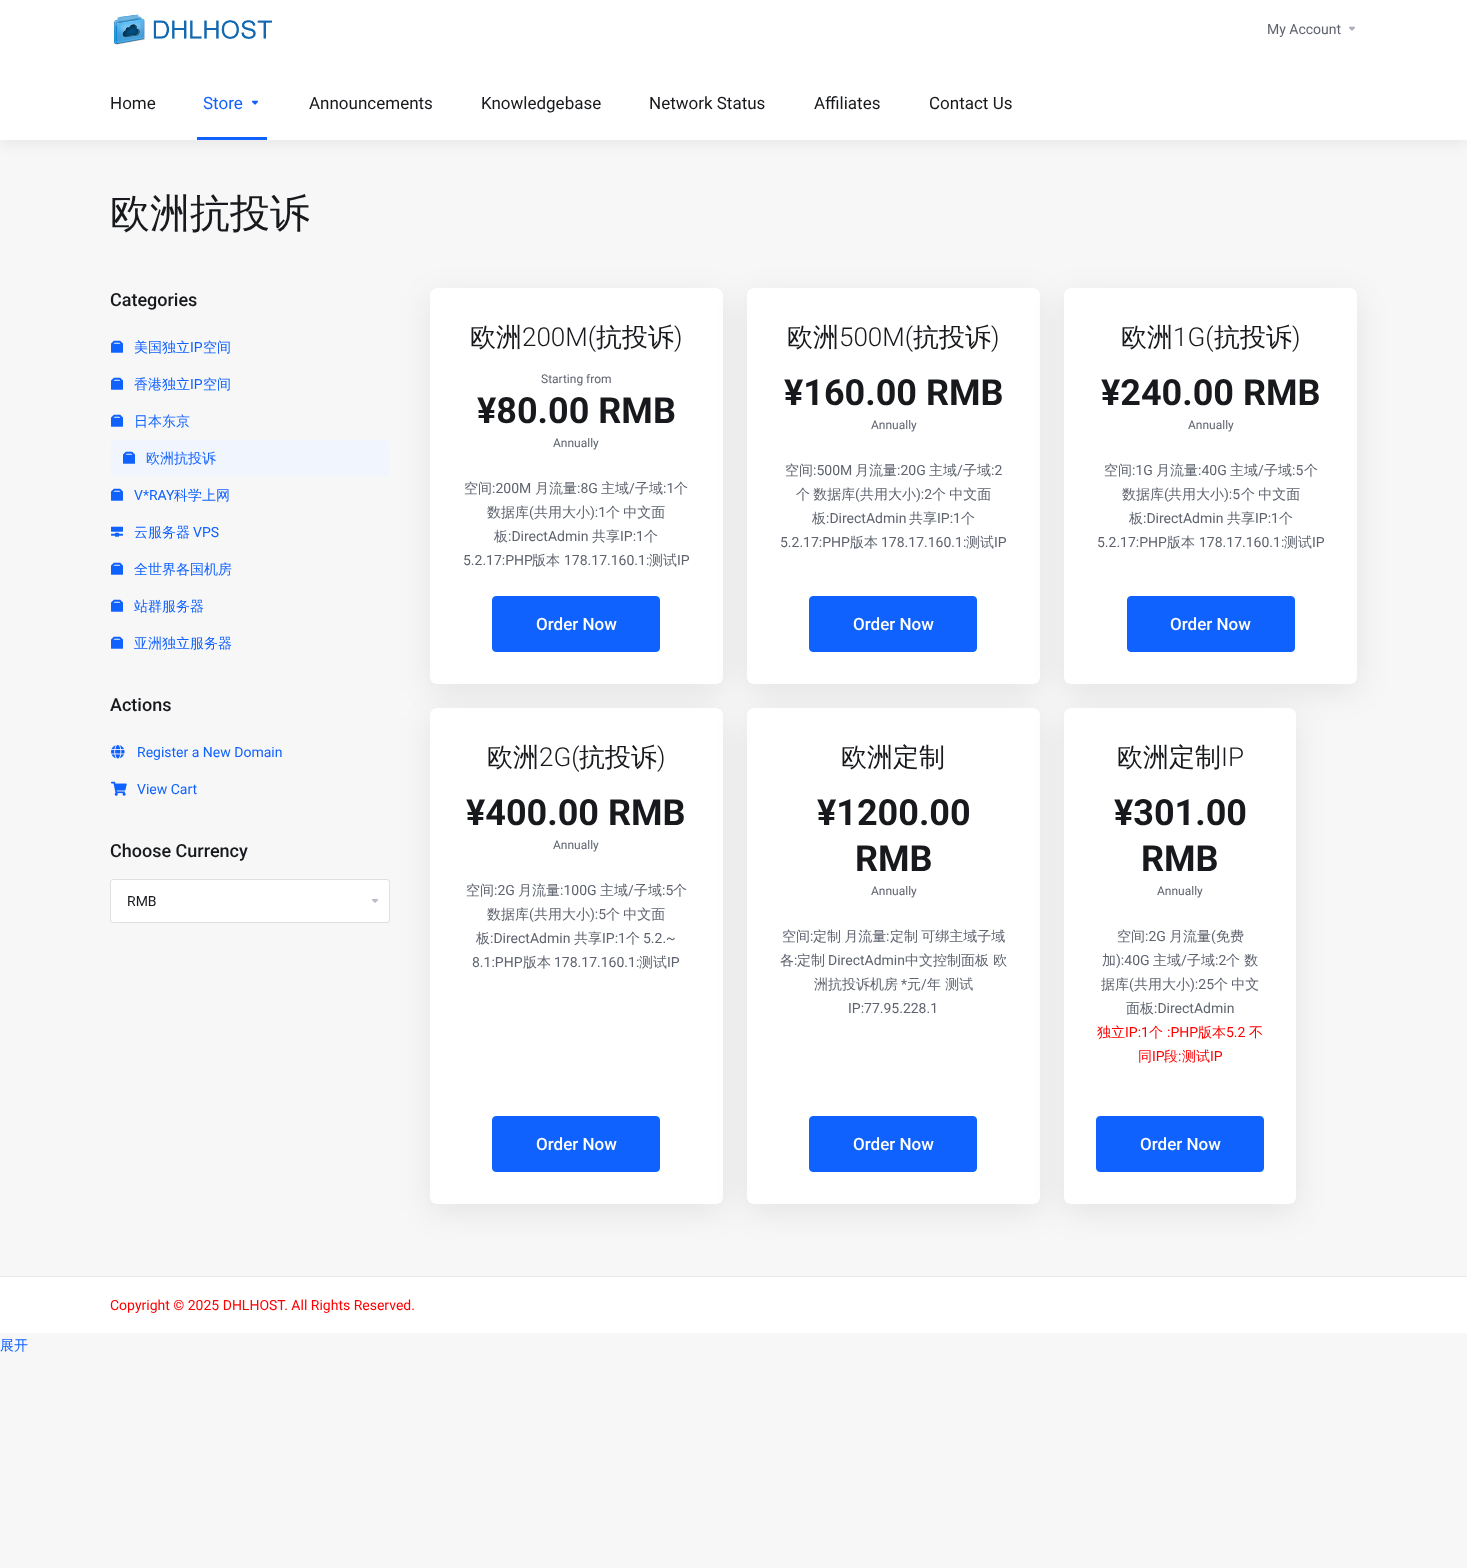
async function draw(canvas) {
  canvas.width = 1467
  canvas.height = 1568
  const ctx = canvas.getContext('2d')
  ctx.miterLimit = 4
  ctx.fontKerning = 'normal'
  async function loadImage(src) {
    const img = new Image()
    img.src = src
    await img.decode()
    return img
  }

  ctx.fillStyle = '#f7f7f8'
  ctx.fillRect(0, 0, 1467, 1568)
  ctx.fillStyle = '#00000014'
  ctx.filter = 'blur(8px)'
  ctx.beginPath()
  ctx.rect(0, -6, 1467, 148)
  ctx.fill()
  ctx.filter = 'none'
  ctx.fillStyle = '#fff'
  ctx.fillRect(0, 0, 1467, 140)
  ctx.drawImage(await loadImage('image0.png'), 113, 14, 159, 31)
  ctx.font = '14px Roboto'
  ctx.fillStyle = '#5e636e'
  ctx.fillText('My Account', 1267, 34)
  ctx.drawImage(await loadImage('image1.png'), 1349, 26, 6, 5)
  ctx.font = '17px Roboto'
  ctx.fillStyle = '#17191c'
  ctx.fillText('Home', 110, 109)
  ctx.fillStyle = '#1062fe'
  ctx.fillText('Store', 203, 109)
  ctx.drawImage(await loadImage('image2.png'), 252, 100, 6, 5)
  ctx.fillRect(197, 137, 70, 3)
  ctx.fillStyle = '#17191c'
  ctx.fillText('Announcements', 309, 109)
  ctx.fillText('Knowledgebase', 481, 109)
  ctx.fillText('Network Status', 649, 109)
  ctx.fillText('Affiliates', 814, 109)
  ctx.fillText('Contact Us', 929, 109)
  ctx.font = '500 40px WenQuanYi Zen Hei'
  ctx.fillText('欧洲抗投诉', 110, 227)
  ctx.font = '500 18px Roboto'
  ctx.fillText('Categories', 110, 306)
  ctx.drawImage(await loadImage('image3.png'), 111, 340, 12, 13)
  ctx.font = '500 14px WenQuanYi Zen Hei'
  ctx.fillStyle = '#1062fe'
  ctx.fillText('美国独立', 134, 352)
  ctx.font = '14px Roboto'
  ctx.fillText('IP', 190, 352)
  ctx.font = '500 14px WenQuanYi Zen Hei'
  ctx.fillText('空间', 203, 352)
  ctx.drawImage(await loadImage('image3.png'), 111, 377, 12, 13)
  ctx.fillText('香港独立', 134, 389)
  ctx.font = '14px Roboto'
  ctx.fillText('IP', 190, 389)
  ctx.font = '500 14px WenQuanYi Zen Hei'
  ctx.fillText('空间', 203, 389)
  ctx.drawImage(await loadImage('image3.png'), 111, 414, 12, 13)
  ctx.fillText('日本东京', 134, 426)
  ctx.fillStyle = '#00000014'
  ctx.filter = 'blur(16px)'
  ctx.beginPath()
  ctx.roundRect(430, 296, 293, 396, 6)
  ctx.fill()
  ctx.filter = 'none'
  ctx.fillStyle = '#f1f5fe'
  ctx.beginPath()
  ctx.roundRect(111, 440, 278, 36, 4)
  ctx.fill()
  ctx.drawImage(await loadImage('image4.png'), 123, 451, 12, 13)
  ctx.fillStyle = '#1062fe'
  ctx.fillText('欧洲抗投诉', 146, 463)
  ctx.drawImage(await loadImage('image3.png'), 111, 488, 12, 13)
  ctx.font = '14px Roboto'
  ctx.fillText('V*RAY', 134, 500)
  ctx.font = '500 14px WenQuanYi Zen Hei'
  ctx.fillText('科学上网', 174, 500)
  ctx.drawImage(await loadImage('image5.png'), 111, 526, 12, 11)
  ctx.fillText('云服务器', 134, 537)
  ctx.font = '14px Roboto'
  ctx.fillText('VPS', 193, 537)
  ctx.drawImage(await loadImage('image3.png'), 111, 562, 12, 13)
  ctx.font = '500 14px WenQuanYi Zen Hei'
  ctx.fillText('全世界各国机房', 134, 574)
  ctx.drawImage(await loadImage('image3.png'), 111, 599, 12, 13)
  ctx.fillText('站群服务器', 134, 611)
  ctx.drawImage(await loadImage('image3.png'), 111, 636, 12, 13)
  ctx.fillText('亚洲独立服务器', 134, 648)
  ctx.font = '500 18px Roboto'
  ctx.fillStyle = '#17191c'
  ctx.fillText('Actions', 110, 711)
  ctx.drawImage(await loadImage('image6.png'), 111, 745, 14, 14)
  ctx.font = '14px Roboto'
  ctx.fillStyle = '#1062fe'
  ctx.fillText('Register a New Domain', 137, 757)
  ctx.drawImage(await loadImage('image7.png'), 111, 781, 16, 15)
  ctx.fillText('View Cart', 137, 794)
  ctx.font = '500 18px Roboto'
  ctx.fillStyle = '#17191c'
  ctx.fillText('Choose Currency', 110, 857)
  ctx.fillStyle = '#fff'
  ctx.beginPath()
  ctx.roundRect(111, 880, 278, 42, 2)
  ctx.fill()
  ctx.drawImage(await loadImage('image8.png'), 372, 899, 6, 4)
  ctx.beginPath()
  ctx.roundRect(110.5, 879.5, 279, 43, 2.5)
  ctx.strokeStyle = '#dee0e3'
  ctx.stroke()
  ctx.font = '14px Roboto'
  ctx.fillStyle = '#17191c'
  ctx.fillText('RMB', 127, 906)
  ctx.fillStyle = '#0000001f'
  ctx.filter = 'blur(0.5px)'
  ctx.beginPath()
  ctx.roundRect(430, 288, 293, 396, 6)
  ctx.fill()
  ctx.filter = 'none'
  ctx.fillStyle = '#fff'
  ctx.beginPath()
  ctx.roundRect(430, 288, 293, 396, 6)
  ctx.fill()
  ctx.font = '500 26px WenQuanYi Zen Hei'
  ctx.fillStyle = '#17191c'
  ctx.fillText('欧洲', 470, 346)
  ctx.font = '300 26px Roboto'
  ctx.fillText('200M(', 522, 346)
  ctx.font = '500 26px WenQuanYi Zen Hei'
  ctx.fillText('抗投诉', 596, 346)
  ctx.font = '300 26px Roboto'
  ctx.fillText(')', 674, 346)
  ctx.font = '12px Roboto'
  ctx.fillStyle = '#5e636e'
  ctx.fillText('Starting from', 541, 383)
  ctx.font = 'bold 36px Roboto'
  ctx.fillStyle = '#17191c'
  ctx.fillText('¥80.00 RMB', 477, 423)
  ctx.font = '12px Roboto'
  ctx.fillStyle = '#5e636e'
  ctx.fillText('Annually', 553, 447)
  ctx.font = '500 14px WenQuanYi Zen Hei'
  ctx.fillText('空间', 464, 493)
  ctx.font = '14px Roboto'
  ctx.fillText(':200M', 492, 493)
  ctx.font = '500 14px WenQuanYi Zen Hei'
  ctx.fillText('月流量', 535, 493)
  ctx.font = '14px Roboto'
  ctx.fillText(':8G', 577, 493)
  ctx.font = '500 14px WenQuanYi Zen Hei'
  ctx.fillText('主域', 601, 493)
  ctx.font = '14px Roboto'
  ctx.fillText('/', 629, 493)
  ctx.font = '500 14px WenQuanYi Zen Hei'
  ctx.fillText('子域', 635, 493)
  ctx.font = '14px Roboto'
  ctx.fillText(':1', 663, 493)
  ctx.font = '500 14px WenQuanYi Zen Hei'
  ctx.fillText('个', 674, 493)
  ctx.fillText('数据库', 487, 517)
  ctx.font = '14px Roboto'
  ctx.fillText('(', 529, 517)
  ctx.font = '500 14px WenQuanYi Zen Hei'
  ctx.fillText('共用大小', 534, 517)
  ctx.font = '14px Roboto'
  ctx.fillText('):1', 590, 517)
  ctx.wordSpacing = '-1px'
  ctx.font = '500 14px WenQuanYi Zen Hei'
  ctx.fillText('个 中文面', 606, 517)
  ctx.wordSpacing = '0px'
  ctx.fillText('板', 494, 541)
  ctx.font = '14px Roboto'
  ctx.fillText(':DirectAdmin', 508, 541)
  ctx.font = '500 14px WenQuanYi Zen Hei'
  ctx.fillText('共享', 592, 541)
  ctx.font = '14px Roboto'
  ctx.fillText('IP:1', 620, 541)
  ctx.font = '500 14px WenQuanYi Zen Hei'
  ctx.fillText('个', 644, 541)
  ctx.font = '14px Roboto'
  ctx.fillText('5.2.17:PHP', 463, 565)
  ctx.font = '500 14px WenQuanYi Zen Hei'
  ctx.fillText('版本', 532, 565)
  ctx.font = '14px Roboto'
  ctx.fillText('178.17.160.1:', 564, 565)
  ctx.font = '500 14px WenQuanYi Zen Hei'
  ctx.fillText('测试', 649, 565)
  ctx.font = '14px Roboto'
  ctx.fillText('IP', 677, 565)
  ctx.fillStyle = '#1062fe'
  ctx.beginPath()
  ctx.roundRect(492.5, 596.5, 167, 55, 3.5)
  ctx.fill()
  ctx.strokeStyle = '#1062fe'
  ctx.stroke()
  ctx.font = '500 17px Roboto'
  ctx.fillStyle = '#fff'
  ctx.fillText('Order Now', 536, 630)
  ctx.fillStyle = '#00000014'
  ctx.filter = 'blur(16px)'
  ctx.beginPath()
  ctx.roundRect(747, 296, 293, 396, 6)
  ctx.fill()
  ctx.filter = 'none'
  ctx.fillStyle = '#0000001f'
  ctx.filter = 'blur(0.5px)'
  ctx.beginPath()
  ctx.roundRect(747, 288, 293, 396, 6)
  ctx.fill()
  ctx.filter = 'none'
  ctx.fillStyle = '#fff'
  ctx.beginPath()
  ctx.roundRect(747, 288, 293, 396, 6)
  ctx.fill()
  ctx.font = '500 26px WenQuanYi Zen Hei'
  ctx.fillStyle = '#17191c'
  ctx.fillText('欧洲', 787, 346)
  ctx.font = '300 26px Roboto'
  ctx.fillText('500M(', 839, 346)
  ctx.font = '500 26px WenQuanYi Zen Hei'
  ctx.fillText('抗投诉', 913, 346)
  ctx.font = '300 26px Roboto'
  ctx.fillText(')', 991, 346)
  ctx.font = 'bold 36px Roboto'
  ctx.fillText('¥160.00 RMB', 784, 405)
  ctx.font = '12px Roboto'
  ctx.fillStyle = '#5e636e'
  ctx.fillText('Annually', 871, 429)
  ctx.font = '500 14px WenQuanYi Zen Hei'
  ctx.fillText('空间', 785, 475)
  ctx.font = '14px Roboto'
  ctx.fillText(':500M', 813, 475)
  ctx.font = '500 14px WenQuanYi Zen Hei'
  ctx.fillText('月流量', 855, 475)
  ctx.font = '14px Roboto'
  ctx.fillText(':20G', 897, 475)
  ctx.font = '500 14px WenQuanYi Zen Hei'
  ctx.fillText('主域', 929, 475)
  ctx.font = '14px Roboto'
  ctx.fillText('/', 957, 475)
  ctx.font = '500 14px WenQuanYi Zen Hei'
  ctx.fillText('子域', 963, 475)
  ctx.font = '14px Roboto'
  ctx.fillText(':2', 991, 475)
  ctx.wordSpacing = '-1px'
  ctx.font = '500 14px WenQuanYi Zen Hei'
  ctx.fillText('个 数据库', 796, 499)
  ctx.wordSpacing = '0px'
  ctx.font = '14px Roboto'
  ctx.fillText('(', 855, 499)
  ctx.font = '500 14px WenQuanYi Zen Hei'
  ctx.fillText('共用大小', 860, 499)
  ctx.font = '14px Roboto'
  ctx.fillText('):2', 916, 499)
  ctx.wordSpacing = '-1px'
  ctx.font = '500 14px WenQuanYi Zen Hei'
  ctx.fillText('个 中文面', 932, 499)
  ctx.wordSpacing = '0px'
  ctx.fillText('板', 812, 523)
  ctx.font = '14px Roboto'
  ctx.fillText(':DirectAdmin', 826, 523)
  ctx.font = '500 14px WenQuanYi Zen Hei'
  ctx.fillText('共享', 909, 523)
  ctx.font = '14px Roboto'
  ctx.fillText('IP:1', 937, 523)
  ctx.font = '500 14px WenQuanYi Zen Hei'
  ctx.fillText('个', 961, 523)
  ctx.font = '14px Roboto'
  ctx.fillText('5.2.17:PHP', 780, 547)
  ctx.font = '500 14px WenQuanYi Zen Hei'
  ctx.fillText('版本', 850, 547)
  ctx.font = '14px Roboto'
  ctx.fillText('178.17.160.1:', 881, 547)
  ctx.font = '500 14px WenQuanYi Zen Hei'
  ctx.fillText('测试', 966, 547)
  ctx.font = '14px Roboto'
  ctx.fillText('IP', 994, 547)
  ctx.fillStyle = '#1062fe'
  ctx.beginPath()
  ctx.roundRect(809.5, 596.5, 167, 55, 3.5)
  ctx.fill()
  ctx.stroke()
  ctx.font = '500 17px Roboto'
  ctx.fillStyle = '#fff'
  ctx.fillText('Order Now', 853, 630)
  ctx.fillStyle = '#00000014'
  ctx.filter = 'blur(16px)'
  ctx.beginPath()
  ctx.roundRect(1064, 296, 293, 396, 6)
  ctx.fill()
  ctx.filter = 'none'
  ctx.fillStyle = '#0000001f'
  ctx.filter = 'blur(0.5px)'
  ctx.beginPath()
  ctx.roundRect(1064, 288, 293, 396, 6)
  ctx.fill()
  ctx.filter = 'none'
  ctx.fillStyle = '#fff'
  ctx.beginPath()
  ctx.roundRect(1064, 288, 293, 396, 6)
  ctx.fill()
  ctx.font = '500 26px WenQuanYi Zen Hei'
  ctx.fillStyle = '#17191c'
  ctx.fillText('欧洲', 1121, 346)
  ctx.font = '300 26px Roboto'
  ctx.fillText('1G(', 1173, 346)
  ctx.font = '500 26px WenQuanYi Zen Hei'
  ctx.fillText('抗投诉', 1214, 346)
  ctx.font = '300 26px Roboto'
  ctx.fillText(')', 1292, 346)
  ctx.font = 'bold 36px Roboto'
  ctx.fillText('¥240.00 RMB', 1101, 405)
  ctx.font = '12px Roboto'
  ctx.fillStyle = '#5e636e'
  ctx.fillText('Annually', 1188, 429)
  ctx.font = '500 14px WenQuanYi Zen Hei'
  ctx.fillText('空间', 1104, 475)
  ctx.font = '14px Roboto'
  ctx.fillText(':1G', 1132, 475)
  ctx.font = '500 14px WenQuanYi Zen Hei'
  ctx.fillText('月流量', 1156, 475)
  ctx.font = '14px Roboto'
  ctx.fillText(':40G', 1198, 475)
  ctx.font = '500 14px WenQuanYi Zen Hei'
  ctx.fillText('主域', 1230, 475)
  ctx.font = '14px Roboto'
  ctx.fillText('/', 1258, 475)
  ctx.font = '500 14px WenQuanYi Zen Hei'
  ctx.fillText('子域', 1264, 475)
  ctx.font = '14px Roboto'
  ctx.fillText(':5', 1292, 475)
  ctx.font = '500 14px WenQuanYi Zen Hei'
  ctx.fillText('个', 1304, 475)
  ctx.fillText('数据库', 1122, 499)
  ctx.font = '14px Roboto'
  ctx.fillText('(', 1164, 499)
  ctx.font = '500 14px WenQuanYi Zen Hei'
  ctx.fillText('共用大小', 1168, 499)
  ctx.font = '14px Roboto'
  ctx.fillText('):5', 1224, 499)
  ctx.wordSpacing = '-1px'
  ctx.font = '500 14px WenQuanYi Zen Hei'
  ctx.fillText('个 中文面', 1241, 499)
  ctx.wordSpacing = '0px'
  ctx.fillText('板', 1129, 523)
  ctx.font = '14px Roboto'
  ctx.fillText(':DirectAdmin', 1143, 523)
  ctx.font = '500 14px WenQuanYi Zen Hei'
  ctx.fillText('共享', 1227, 523)
  ctx.font = '14px Roboto'
  ctx.fillText('IP:1', 1255, 523)
  ctx.font = '500 14px WenQuanYi Zen Hei'
  ctx.fillText('个', 1279, 523)
  ctx.font = '14px Roboto'
  ctx.fillText('5.2.17:PHP', 1097, 547)
  ctx.font = '500 14px WenQuanYi Zen Hei'
  ctx.fillText('版本', 1167, 547)
  ctx.font = '14px Roboto'
  ctx.fillText('178.17.160.1:', 1199, 547)
  ctx.font = '500 14px WenQuanYi Zen Hei'
  ctx.fillText('测试', 1284, 547)
  ctx.font = '14px Roboto'
  ctx.fillText('IP', 1312, 547)
  ctx.fillStyle = '#1062fe'
  ctx.beginPath()
  ctx.roundRect(1127.5, 596.5, 167, 55, 3.5)
  ctx.fill()
  ctx.stroke()
  ctx.font = '500 17px Roboto'
  ctx.fillStyle = '#fff'
  ctx.fillText('Order Now', 1170, 630)
  ctx.fillStyle = '#00000014'
  ctx.filter = 'blur(16px)'
  ctx.beginPath()
  ctx.roundRect(430, 716, 293, 496, 6)
  ctx.fill()
  ctx.filter = 'none'
  ctx.fillStyle = '#0000001f'
  ctx.filter = 'blur(0.5px)'
  ctx.beginPath()
  ctx.roundRect(430, 708, 293, 496, 6)
  ctx.fill()
  ctx.filter = 'none'
  ctx.fillStyle = '#fff'
  ctx.beginPath()
  ctx.roundRect(430, 708, 293, 496, 6)
  ctx.fill()
  ctx.font = '500 26px WenQuanYi Zen Hei'
  ctx.fillStyle = '#17191c'
  ctx.fillText('欧洲', 487, 766)
  ctx.font = '300 26px Roboto'
  ctx.fillText('2G(', 539, 766)
  ctx.font = '500 26px WenQuanYi Zen Hei'
  ctx.fillText('抗投诉', 579, 766)
  ctx.font = '300 26px Roboto'
  ctx.fillText(')', 657, 766)
  ctx.font = 'bold 36px Roboto'
  ctx.fillText('¥400.00 RMB', 466, 825)
  ctx.font = '12px Roboto'
  ctx.fillStyle = '#5e636e'
  ctx.fillText('Annually', 553, 849)
  ctx.font = '500 14px WenQuanYi Zen Hei'
  ctx.fillText('空间', 466, 895)
  ctx.font = '14px Roboto'
  ctx.fillText(':2G', 494, 895)
  ctx.font = '500 14px WenQuanYi Zen Hei'
  ctx.fillText('月流量', 518, 895)
  ctx.font = '14px Roboto'
  ctx.fillText(':100G', 560, 895)
  ctx.font = '500 14px WenQuanYi Zen Hei'
  ctx.fillText('主域', 600, 895)
  ctx.font = '14px Roboto'
  ctx.fillText('/', 628, 895)
  ctx.font = '500 14px WenQuanYi Zen Hei'
  ctx.fillText('子域', 634, 895)
  ctx.font = '14px Roboto'
  ctx.fillText(':5', 662, 895)
  ctx.font = '500 14px WenQuanYi Zen Hei'
  ctx.fillText('个', 673, 895)
  ctx.fillText('数据库', 487, 919)
  ctx.font = '14px Roboto'
  ctx.fillText('(', 529, 919)
  ctx.font = '500 14px WenQuanYi Zen Hei'
  ctx.fillText('共用大小', 534, 919)
  ctx.font = '14px Roboto'
  ctx.fillText('):5', 590, 919)
  ctx.wordSpacing = '-1px'
  ctx.font = '500 14px WenQuanYi Zen Hei'
  ctx.fillText('个 中文面', 606, 919)
  ctx.wordSpacing = '0px'
  ctx.fillText('板', 476, 943)
  ctx.font = '14px Roboto'
  ctx.fillText(':DirectAdmin', 490, 943)
  ctx.font = '500 14px WenQuanYi Zen Hei'
  ctx.fillText('共享', 574, 943)
  ctx.font = '14px Roboto'
  ctx.fillText('IP:1', 602, 943)
  ctx.font = '500 14px WenQuanYi Zen Hei'
  ctx.fillText('个', 626, 943)
  ctx.font = '14px Roboto'
  ctx.fillText('5.2.~', 643, 943)
  ctx.fillText('8.1:PHP', 472, 967)
  ctx.font = '500 14px WenQuanYi Zen Hei'
  ctx.fillText('版本', 523, 967)
  ctx.font = '14px Roboto'
  ctx.fillText('178.17.160.1:', 554, 967)
  ctx.font = '500 14px WenQuanYi Zen Hei'
  ctx.fillText('测试', 639, 967)
  ctx.font = '14px Roboto'
  ctx.fillText('IP', 667, 967)
  ctx.fillStyle = '#1062fe'
  ctx.beginPath()
  ctx.roundRect(492.5, 1116.5, 167, 55, 3.5)
  ctx.fill()
  ctx.stroke()
  ctx.font = '500 17px Roboto'
  ctx.fillStyle = '#fff'
  ctx.fillText('Order Now', 536, 1150)
  ctx.fillStyle = '#00000014'
  ctx.filter = 'blur(16px)'
  ctx.beginPath()
  ctx.roundRect(747, 716, 293, 496, 6)
  ctx.fill()
  ctx.filter = 'none'
  ctx.fillStyle = '#0000001f'
  ctx.filter = 'blur(0.5px)'
  ctx.beginPath()
  ctx.roundRect(747, 708, 293, 496, 6)
  ctx.fill()
  ctx.filter = 'none'
  ctx.fillStyle = '#fff'
  ctx.beginPath()
  ctx.roundRect(747, 708, 293, 496, 6)
  ctx.fill()
  ctx.font = '500 26px WenQuanYi Zen Hei'
  ctx.fillStyle = '#17191c'
  ctx.fillText('欧洲定制', 841, 766)
  ctx.font = 'bold 36px Roboto'
  ctx.fillText('¥1200.00', 817, 825)
  ctx.fillText('RMB', 855, 871)
  ctx.font = '12px Roboto'
  ctx.fillStyle = '#5e636e'
  ctx.fillText('Annually', 871, 895)
  ctx.font = '500 14px WenQuanYi Zen Hei'
  ctx.fillText('空间', 782, 941)
  ctx.font = '14px Roboto'
  ctx.fillText(':', 810, 941)
  ctx.wordSpacing = '-1px'
  ctx.font = '500 14px WenQuanYi Zen Hei'
  ctx.fillText('定制 月流量', 813, 941)
  ctx.wordSpacing = '0px'
  ctx.font = '14px Roboto'
  ctx.fillText(':', 886, 941)
  ctx.wordSpacing = '-1px'
  ctx.font = '500 14px WenQuanYi Zen Hei'
  ctx.fillText('定制 可绑主域子域', 890, 941)
  ctx.wordSpacing = '0px'
  ctx.fillText('各', 780, 965)
  ctx.font = '14px Roboto'
  ctx.fillText(':', 794, 965)
  ctx.font = '500 14px WenQuanYi Zen Hei'
  ctx.fillText('定制', 797, 965)
  ctx.font = '14px Roboto'
  ctx.fillText('DirectAdmin', 828, 965)
  ctx.font = '500 14px WenQuanYi Zen Hei'
  ctx.fillText('中文控制面板 欧', 905, 965)
  ctx.fillText('洲抗投诉机房', 814, 989)
  ctx.font = '14px Roboto'
  ctx.fillText('*', 901, 989)
  ctx.font = '500 14px WenQuanYi Zen Hei'
  ctx.fillText('元', 907, 989)
  ctx.font = '14px Roboto'
  ctx.fillText('/', 921, 989)
  ctx.font = '500 14px WenQuanYi Zen Hei'
  ctx.fillText('年 测试', 927, 989)
  ctx.font = '14px Roboto'
  ctx.fillText('IP:77.95.228.1', 848, 1013)
  ctx.fillStyle = '#1062fe'
  ctx.beginPath()
  ctx.roundRect(809.5, 1116.5, 167, 55, 3.5)
  ctx.fill()
  ctx.stroke()
  ctx.font = '500 17px Roboto'
  ctx.fillStyle = '#fff'
  ctx.fillText('Order Now', 853, 1150)
  ctx.fillStyle = '#00000014'
  ctx.filter = 'blur(16px)'
  ctx.beginPath()
  ctx.roundRect(1064, 716, 232, 496, 6)
  ctx.fill()
  ctx.filter = 'none'
  ctx.fillStyle = '#0000001f'
  ctx.filter = 'blur(0.5px)'
  ctx.beginPath()
  ctx.roundRect(1064, 708, 232, 496, 6)
  ctx.fill()
  ctx.filter = 'none'
  ctx.fillStyle = '#fff'
  ctx.beginPath()
  ctx.roundRect(1064, 708, 232, 496, 6)
  ctx.fill()
  ctx.font = '500 26px WenQuanYi Zen Hei'
  ctx.fillStyle = '#17191c'
  ctx.fillText('欧洲定制', 1117, 766)
  ctx.font = '300 26px Roboto'
  ctx.fillText('IP', 1221, 766)
  ctx.font = 'bold 36px Roboto'
  ctx.fillText('¥301.00', 1114, 825)
  ctx.fillText('RMB', 1141, 871)
  ctx.font = '12px Roboto'
  ctx.fillStyle = '#5e636e'
  ctx.fillText('Annually', 1157, 895)
  ctx.font = '500 14px WenQuanYi Zen Hei'
  ctx.fillText('空间', 1117, 941)
  ctx.font = '14px Roboto'
  ctx.fillText(':2G', 1145, 941)
  ctx.font = '500 14px WenQuanYi Zen Hei'
  ctx.fillText('月流量', 1169, 941)
  ctx.font = '14px Roboto'
  ctx.fillText('(', 1211, 941)
  ctx.font = '500 14px WenQuanYi Zen Hei'
  ctx.fillText('免费', 1216, 941)
  ctx.fillText('加', 1102, 965)
  ctx.font = '14px Roboto'
  ctx.fillText('):40G', 1116, 965)
  ctx.font = '500 14px WenQuanYi Zen Hei'
  ctx.fillText('主域', 1153, 965)
  ctx.font = '14px Roboto'
  ctx.fillText('/', 1181, 965)
  ctx.font = '500 14px WenQuanYi Zen Hei'
  ctx.fillText('子域', 1187, 965)
  ctx.font = '14px Roboto'
  ctx.fillText(':2', 1215, 965)
  ctx.font = '500 14px WenQuanYi Zen Hei'
  ctx.fillText('个 数', 1226, 965)
  ctx.fillText('据库', 1101, 989)
  ctx.font = '14px Roboto'
  ctx.fillText('(', 1129, 989)
  ctx.font = '500 14px WenQuanYi Zen Hei'
  ctx.fillText('共用大小', 1134, 989)
  ctx.font = '14px Roboto'
  ctx.fillText('):25', 1190, 989)
  ctx.wordSpacing = '-1px'
  ctx.font = '500 14px WenQuanYi Zen Hei'
  ctx.fillText('个 中文', 1214, 989)
  ctx.wordSpacing = '0px'
  ctx.fillText('面板', 1126, 1013)
  ctx.font = '14px Roboto'
  ctx.fillText(':DirectAdmin', 1154, 1013)
  ctx.font = '500 14px WenQuanYi Zen Hei'
  ctx.fillStyle = '#f00'
  ctx.fillText('独立', 1097, 1037)
  ctx.font = '14px Roboto'
  ctx.fillText('IP:1', 1125, 1037)
  ctx.font = '500 14px WenQuanYi Zen Hei'
  ctx.fillText('个', 1149, 1037)
  ctx.font = '14px Roboto'
  ctx.fillText(':PHP', 1167, 1037)
  ctx.font = '500 14px WenQuanYi Zen Hei'
  ctx.fillText('版本', 1198, 1037)
  ctx.font = '14px Roboto'
  ctx.fillText('5.2', 1226, 1037)
  ctx.font = '500 14px WenQuanYi Zen Hei'
  ctx.fillText('不', 1249, 1037)
  ctx.fillText('同', 1138, 1061)
  ctx.font = '14px Roboto'
  ctx.fillText('IP', 1152, 1061)
  ctx.font = '500 14px WenQuanYi Zen Hei'
  ctx.fillText('段', 1164, 1061)
  ctx.font = '14px Roboto'
  ctx.fillText(':', 1178, 1061)
  ctx.font = '500 14px WenQuanYi Zen Hei'
  ctx.fillText('测试', 1182, 1061)
  ctx.font = '14px Roboto'
  ctx.fillText('IP', 1210, 1061)
  ctx.fillStyle = '#1062fe'
  ctx.beginPath()
  ctx.roundRect(1096.5, 1116.5, 167, 55, 3.5)
  ctx.fill()
  ctx.stroke()
  ctx.font = '500 17px Roboto'
  ctx.fillStyle = '#fff'
  ctx.fillText('Order Now', 1140, 1150)
  ctx.fillRect(0, 1277, 1467, 56)
  ctx.fillStyle = '#e9eaec'
  ctx.fillRect(0, 1276, 1467, 1)
  ctx.font = '14px Roboto'
  ctx.fillStyle = '#f00'
  ctx.fillText('Copyright © 2025 DHLHOST. All Rights Reserved.', 110, 1310)
  ctx.font = '500 14px WenQuanYi Zen Hei'
  ctx.fillStyle = '#1062fe'
  ctx.fillText('展开', 0, 1350)
}

draw(document.querySelector('canvas'))
